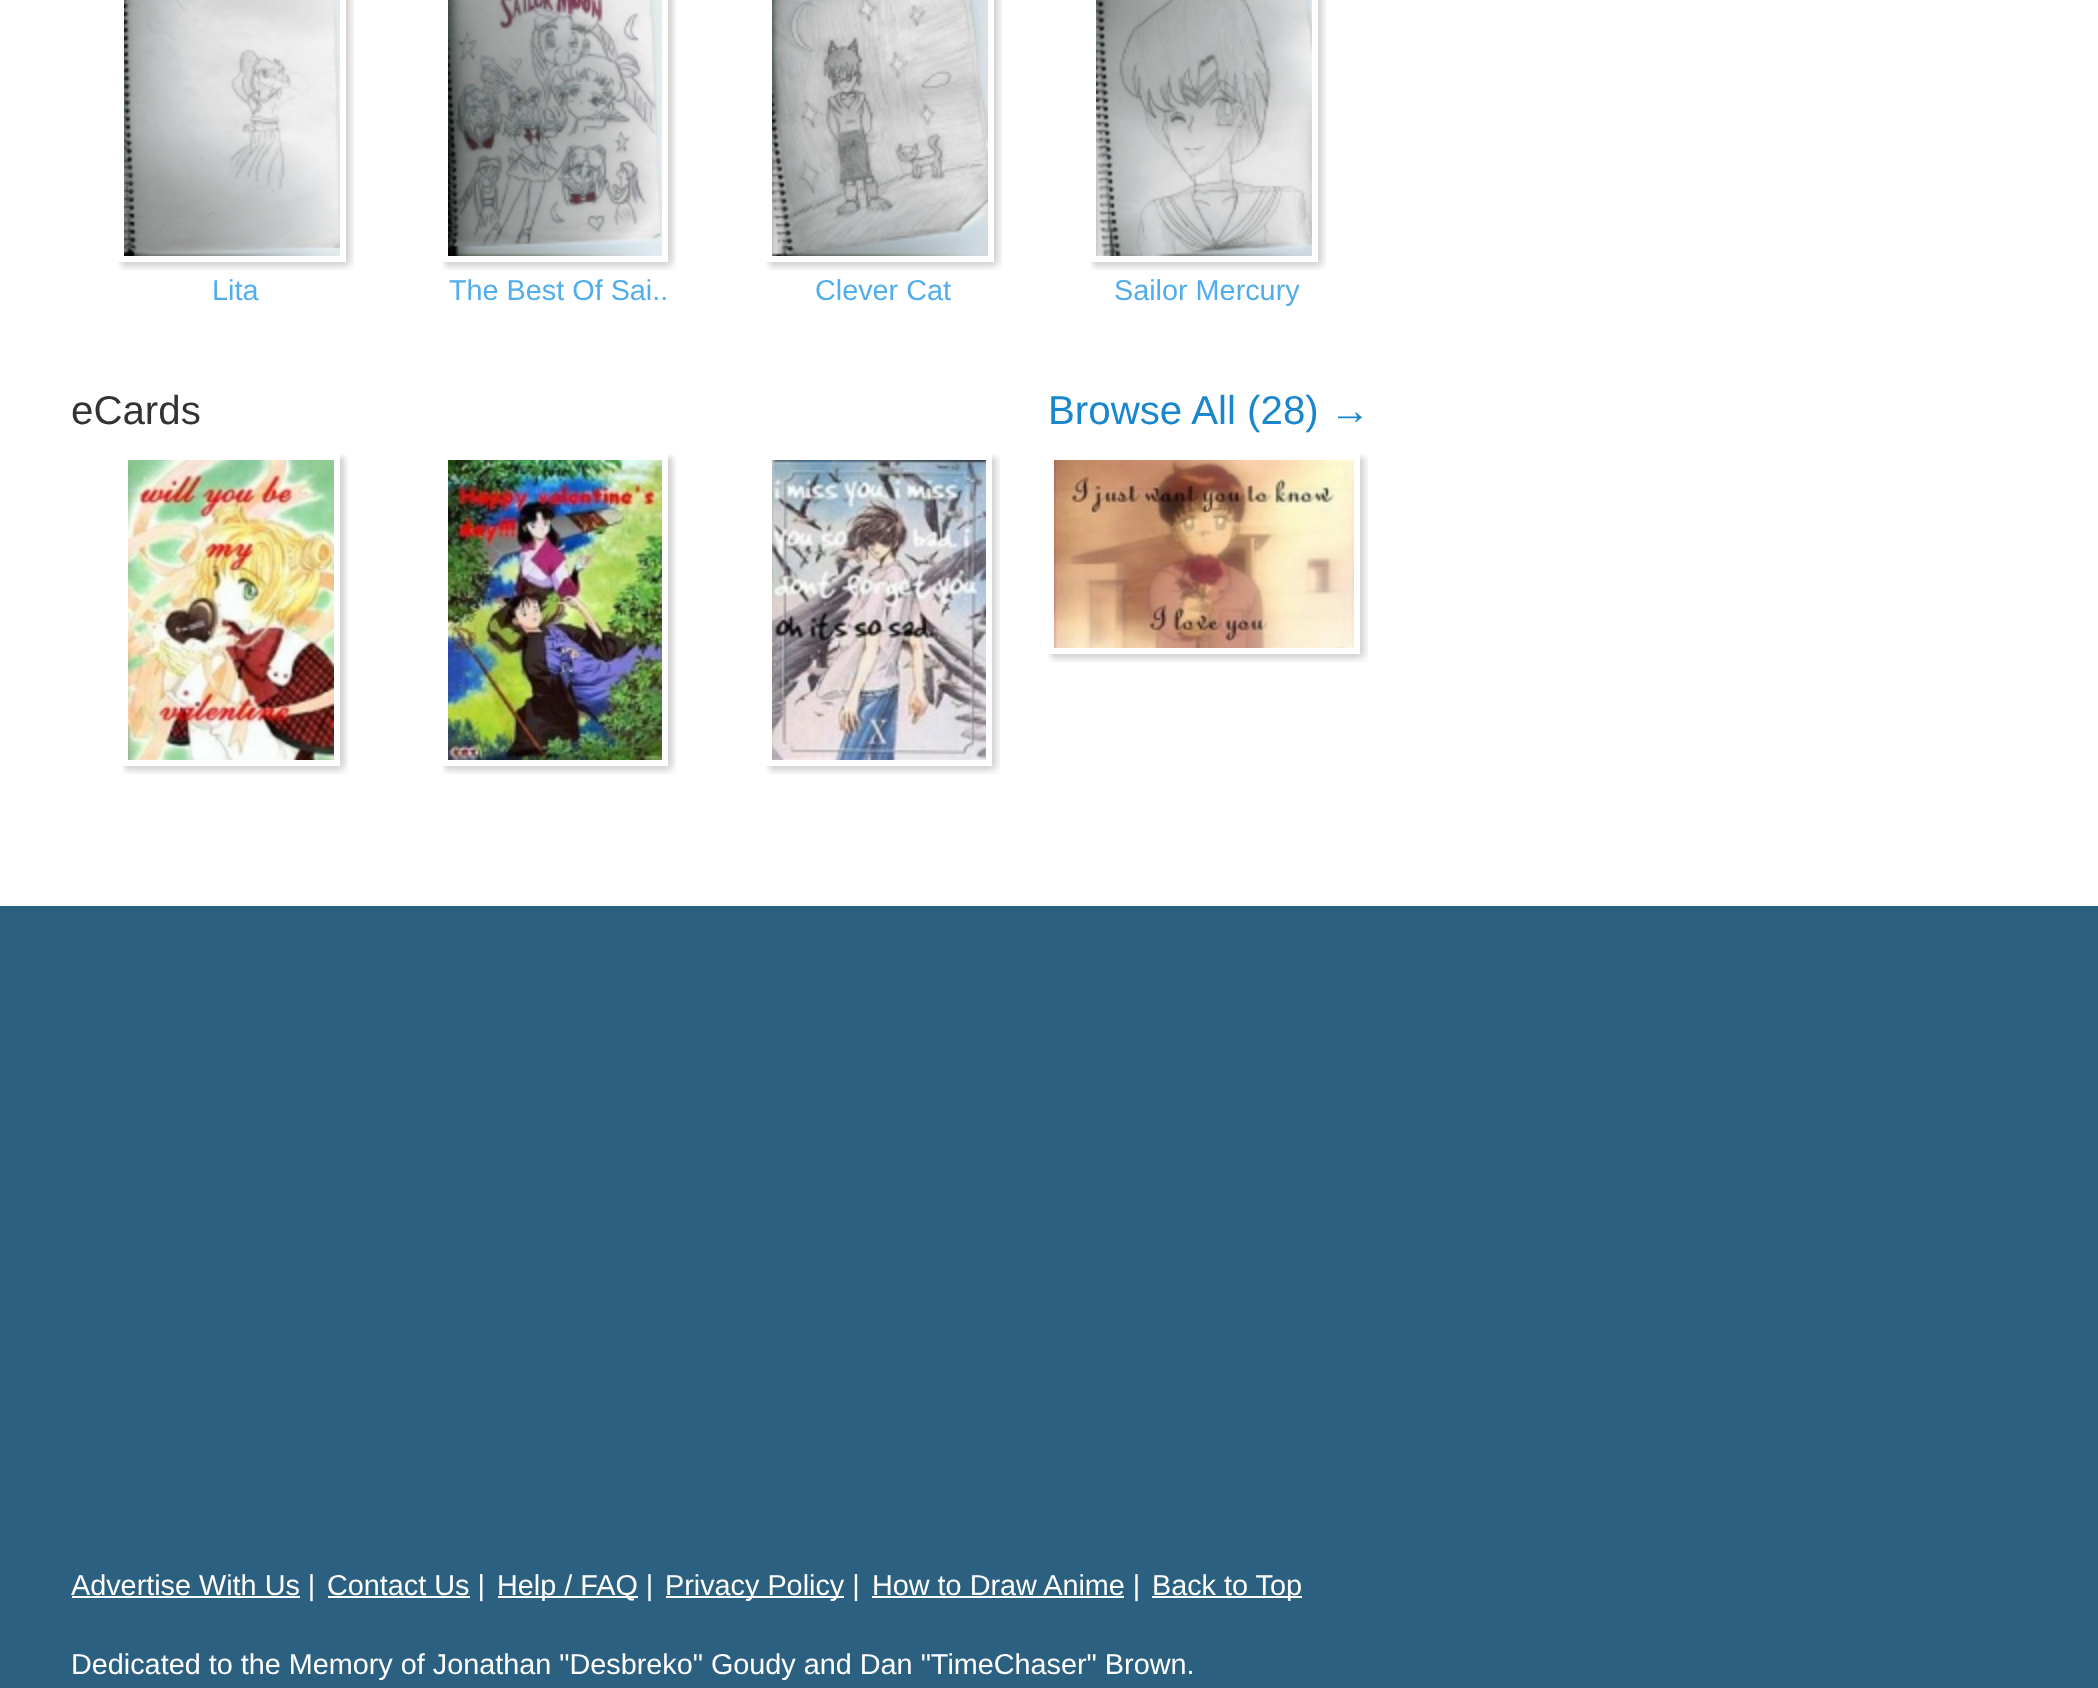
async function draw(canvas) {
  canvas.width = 2098
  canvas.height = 1688
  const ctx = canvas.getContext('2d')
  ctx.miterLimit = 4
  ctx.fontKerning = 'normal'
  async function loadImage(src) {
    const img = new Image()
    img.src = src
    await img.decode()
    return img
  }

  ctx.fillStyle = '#fff'
  ctx.fillRect(0, 0, 2098, 1688)
  ctx.drawImage(await loadImage('image0.png'), 118, 0, 236, 270)
  ctx.drawImage(await loadImage('image1.png'), 118, 262, 7, 8)
  ctx.strokeStyle = '#fff'
  ctx.lineWidth = 4
  ctx.strokeRect(120, -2, 224, 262)
  ctx.drawImage(await loadImage('image2.png'), 124, 0, 216, 256)
  ctx.font = '28.8px Liberation Sans'
  ctx.fillStyle = '#51adeb'
  ctx.fillText('Lita', 212, 300)
  ctx.drawImage(await loadImage('image3.png'), 442, 0, 234, 270)
  ctx.drawImage(await loadImage('image1.png'), 442, 262, 7, 8)
  ctx.strokeRect(444, -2, 222, 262)
  ctx.drawImage(await loadImage('image4.png'), 448, 0, 214, 256)
  ctx.fillText('The Best Of Sai..', 449, 300)
  ctx.drawImage(await loadImage('image0.png'), 766, 0, 236, 270)
  ctx.drawImage(await loadImage('image1.png'), 766, 262, 7, 8)
  ctx.strokeRect(768, -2, 224, 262)
  ctx.drawImage(await loadImage('image5.png'), 772, 0, 216, 256)
  ctx.fillText('Clever Cat', 815, 300)
  ctx.drawImage(await loadImage('image0.png'), 1090, 0, 236, 270)
  ctx.drawImage(await loadImage('image1.png'), 1090, 262, 7, 8)
  ctx.strokeRect(1092, -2, 224, 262)
  ctx.drawImage(await loadImage('image6.png'), 1096, 0, 216, 256)
  ctx.fillText('Sailor Mercury', 1114, 300)
  ctx.font = '40.25px Liberation Sans'
  ctx.fillStyle = '#333'
  ctx.fillText('eCards', 71, 424)
  ctx.fillStyle = '#1a86cb'
  ctx.fillText('Browse All (28) →', 1048, 424)
  ctx.drawImage(await loadImage('image7.png'), 122, 454, 226, 320)
  ctx.drawImage(await loadImage('image8.png'), 122, 454, 226, 320)
  ctx.strokeRect(124, 456, 214, 308)
  ctx.drawImage(await loadImage('image9.png'), 128, 460, 206, 300)
  ctx.drawImage(await loadImage('image10.png'), 442, 454, 234, 320)
  ctx.drawImage(await loadImage('image11.png'), 442, 454, 234, 320)
  ctx.strokeRect(444, 456, 222, 308)
  ctx.drawImage(await loadImage('image12.png'), 448, 460, 214, 300)
  ctx.drawImage(await loadImage('image10.png'), 766, 454, 234, 320)
  ctx.drawImage(await loadImage('image11.png'), 766, 454, 234, 320)
  ctx.strokeRect(768, 456, 222, 308)
  ctx.drawImage(await loadImage('image13.png'), 772, 460, 214, 300)
  ctx.drawImage(await loadImage('image14.png'), 1048, 454, 320, 208)
  ctx.drawImage(await loadImage('image15.png'), 1048, 454, 320, 208)
  ctx.strokeRect(1050, 456, 308, 196)
  ctx.drawImage(await loadImage('image16.png'), 1054, 460, 300, 188)
  ctx.fillStyle = '#2b6080'
  ctx.fillRect(0, 906, 2098, 782)
  ctx.fillStyle = '#fff'
  ctx.fillRect(72, 1596, 228, 2)
  ctx.font = '28.8px Liberation Sans'
  ctx.fillText('Advertise With Us |', 71, 1595)
  ctx.fillRect(328, 1596, 142, 2)
  ctx.fillText('Contact Us |', 327, 1595)
  ctx.fillRect(498, 1596, 140, 2)
  ctx.fillText('Help / FAQ |', 497, 1595)
  ctx.fillRect(666, 1596, 178, 2)
  ctx.fillText('Privacy Policy |', 665, 1595)
  ctx.fillRect(872, 1596, 252, 2)
  ctx.fillText('How to Draw Anime |', 872, 1595)
  ctx.fillRect(1152, 1596, 150, 2)
  ctx.fillText('Back to Top', 1152, 1595)
  ctx.fillText('Dedicated to the Memory of Jonathan "Desbreko" Goudy and Dan "TimeChaser" Brown.', 71, 1674)
}

draw(document.querySelector('canvas'))
